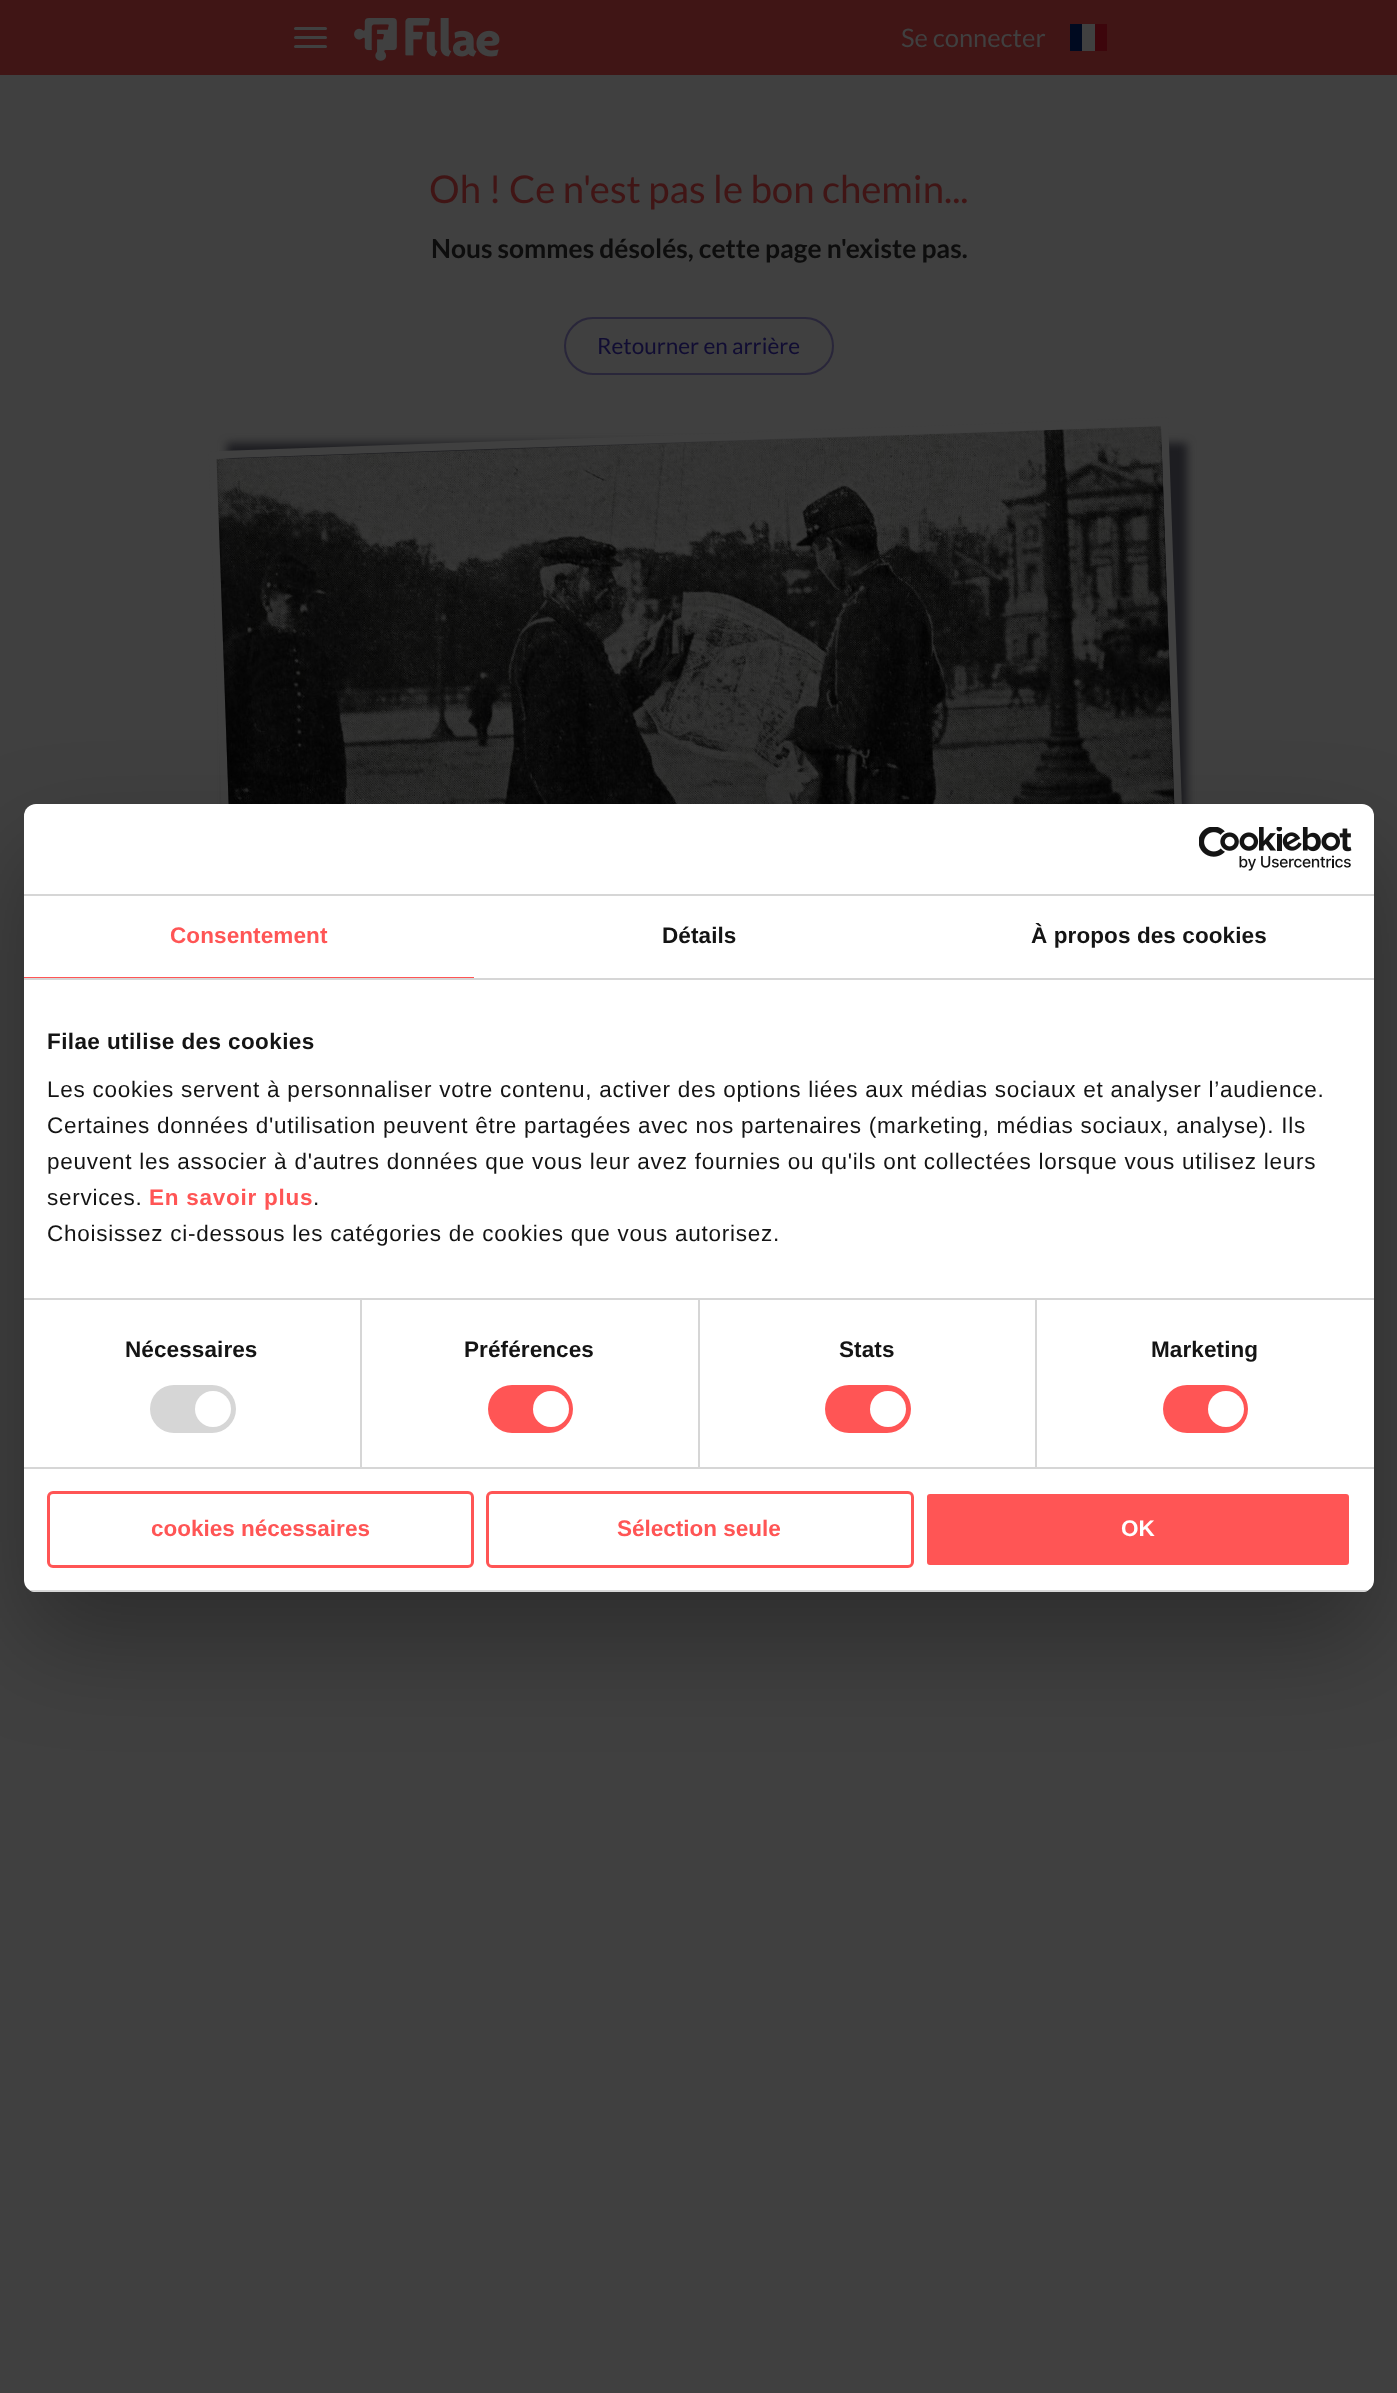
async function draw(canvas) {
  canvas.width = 1397
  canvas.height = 2393
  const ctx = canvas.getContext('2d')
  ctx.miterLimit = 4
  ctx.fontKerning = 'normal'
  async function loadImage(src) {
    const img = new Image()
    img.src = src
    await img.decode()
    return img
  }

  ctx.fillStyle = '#404040'
  ctx.fillRect(0, 0, 1397, 2393)
  ctx.fillStyle = '#401515'
  ctx.fillRect(0, 0, 1397, 75)
  ctx.fillStyle = '#404040'
  ctx.beginPath()
  ctx.roundRect(294, 27, 33, 3, 1.5)
  ctx.fill()
  ctx.beginPath()
  ctx.roundRect(294, 36, 33, 3, 1.5)
  ctx.fill()
  ctx.beginPath()
  ctx.roundRect(294, 45, 33, 3, 1.5)
  ctx.fill()
  ctx.drawImage(await loadImage('image0.png'), 354, 18, 146, 43)
  ctx.font = '25.5px Lato'
  ctx.fillText('Se connecter', 901, 47)
  ctx.fillRect(1082, 24, 13, 27)
  ctx.fillStyle = '#000a20'
  ctx.fillRect(1070, 24, 12, 27)
  ctx.fillStyle = '#3d060c'
  ctx.fillRect(1095, 24, 12, 27)
  ctx.font = '38.4px Lato'
  ctx.fillStyle = '#401515'
  ctx.fillText('Oh ! Ce n\'est pas le bon chemin...', 429, 203)
  ctx.font = 'bold 26.4px Lato'
  ctx.fillStyle = '#0d0d0d'
  ctx.fillText('Nous sommes désolés, cette page n\'existe pas.', 431, 258)
  ctx.beginPath()
  ctx.roundRect(565, 318, 268, 56, 28)
  ctx.strokeStyle = '#29263a'
  ctx.lineWidth = 2
  ctx.stroke()
  ctx.font = '22.5px Lato'
  ctx.fillStyle = '#110d33'
  ctx.fillText('Retourner en arrière', 597, 354)
  ctx.fillStyle = '#1d1d21'
  ctx.filter = 'blur(4px)'
  ctx.beginPath()
  ctx.rect(227, 443, 960, 598)
  ctx.fill()
  ctx.filter = 'none'
  ctx.beginPath()
  ctx.moveTo(212.5, 455)
  ctx.lineTo(1164.5, 421.5)
  ctx.lineTo(1185.5, 1013)
  ctx.lineTo(233.5, 1046.5)
  ctx.closePath()
  ctx.strokeStyle = '#404040'
  ctx.lineWidth = 7.5
  ctx.stroke()
  ctx.drawImage(await loadImage('image1.png'), 216, 426, 959, 378)
  ctx.fillStyle = '#0000004d'
  ctx.filter = 'blur(51px)'
  ctx.beginPath()
  ctx.roundRect(24, 852, 1350, 788, 12)
  ctx.fill()
  ctx.filter = 'none'
  ctx.fillStyle = '#fff'
  ctx.beginPath()
  ctx.roundRect(24, 804, 1350, 788, 12)
  ctx.fill()
  ctx.fillStyle = '#d6d6d6'
  ctx.fillRect(24, 894, 1350, 2)
  ctx.drawImage(await loadImage('image2.png'), 1199, 827, 153, 44)
  ctx.fillRect(24, 978, 1350, 2)
  ctx.fillStyle = '#f55'
  ctx.fillRect(24, 977, 450, 1)
  ctx.letterSpacing = '0.1px'
  ctx.font = 'bold 22.5px Liberation Sans'
  ctx.fillText('Consentement', 170, 943)
  ctx.fillStyle = '#141414'
  ctx.fillText('Détails', 662, 943)
  ctx.fillText('À propos des cookies', 1031, 943)
  ctx.fillStyle = '#d6d6d6'
  ctx.fillRect(360, 1299, 2, 168)
  ctx.fillRect(698, 1299, 2, 168)
  ctx.fillRect(1035, 1299, 2, 168)
  ctx.fillRect(24, 1298, 1350, 2)
  ctx.letterSpacing = '0.4px'
  ctx.fillStyle = '#141414'
  ctx.fillText('Filae utilise des cookies', 47, 1049)
  ctx.letterSpacing = '0.75px'
  ctx.font = '22.5px Liberation Sans'
  ctx.fillText('Les cookies servent à personnaliser votre contenu, activer des options liées aux médias sociaux et analyser l’audience.', 47, 1097)
  ctx.fillText('Certaines données d\'utilisation peuvent être partagées avec nos partenaires (marketing, médias sociaux, analyse). Ils', 47, 1133)
  ctx.fillText('peuvent les associer à d\'autres données que vous leur avez fournies ou qu\'ils ont collectées lorsque vous utilisez leurs', 47, 1169)
  ctx.fillText('services.', 47, 1205)
  ctx.font = 'bold 22.5px Liberation Sans'
  ctx.fillStyle = '#f55'
  ctx.fillText('En savoir plus', 149, 1205)
  ctx.font = '22.5px Liberation Sans'
  ctx.fillStyle = '#141414'
  ctx.fillText('.', 313, 1205)
  ctx.fillText('Choisissez ci-dessous les catégories de cookies que vous autorisez.', 47, 1241)
  ctx.fillStyle = '#d6d6d6'
  ctx.fillRect(24, 1467, 1350, 2)
  ctx.letterSpacing = '0.1px'
  ctx.font = 'bold 22.5px Liberation Sans'
  ctx.fillStyle = '#141414'
  ctx.fillText('Nécessaires', 125, 1357)
  ctx.fillStyle = '#d6d6d6'
  ctx.beginPath()
  ctx.roundRect(150, 1385, 86, 48, 24)
  ctx.fill()
  ctx.fillStyle = '#fff'
  ctx.beginPath()
  ctx.arc(213, 1409, 18, 0, 2 * Math.PI)
  ctx.fill()
  ctx.fillStyle = '#141414'
  ctx.fillText('Préférences', 464, 1357)
  ctx.fillStyle = '#f55'
  ctx.beginPath()
  ctx.roundRect(488, 1385, 85, 48, 24)
  ctx.fill()
  ctx.fillStyle = '#fff'
  ctx.beginPath()
  ctx.arc(551, 1409, 18, 0, 2 * Math.PI)
  ctx.fill()
  ctx.fillStyle = '#141414'
  ctx.fillText('Stats', 839, 1357)
  ctx.fillStyle = '#f55'
  ctx.beginPath()
  ctx.roundRect(825, 1385, 86, 48, 24)
  ctx.fill()
  ctx.fillStyle = '#fff'
  ctx.beginPath()
  ctx.arc(888, 1409, 18, 0, 2 * Math.PI)
  ctx.fill()
  ctx.fillStyle = '#141414'
  ctx.fillText('Marketing', 1151, 1357)
  ctx.fillStyle = '#f55'
  ctx.beginPath()
  ctx.roundRect(1163, 1385, 85, 48, 24)
  ctx.fill()
  ctx.fillStyle = '#fff'
  ctx.beginPath()
  ctx.arc(1226, 1409, 18, 0, 2 * Math.PI)
  ctx.fill()
  ctx.save()
  ctx.beginPath()
  ctx.roundRect(24, 804, 1350, 788, 12)
  ctx.clip()
  ctx.fillStyle = '#d6d6d6'
  ctx.fillRect(24, 1590, 1350, 2)
  ctx.restore()
  ctx.beginPath()
  ctx.roundRect(48.5, 1492.5, 424, 74, 4.5)
  ctx.strokeStyle = '#f55'
  ctx.lineWidth = 3
  ctx.stroke()
  ctx.letterSpacing = '0px'
  ctx.fillStyle = '#f55'
  ctx.fillText('cookies nécessaires', 151, 1536)
  ctx.beginPath()
  ctx.roundRect(487.5, 1492.5, 425, 74, 4.5)
  ctx.stroke()
  ctx.fillText('Sélection seule', 617, 1536)
  ctx.beginPath()
  ctx.roundRect(925.5, 1492.5, 425, 74, 4.5)
  ctx.fill()
  ctx.strokeStyle = '#fff'
  ctx.stroke()
  ctx.fillStyle = '#fff'
  ctx.fillText('OK', 1121, 1536)
}

draw(document.querySelector('canvas'))
